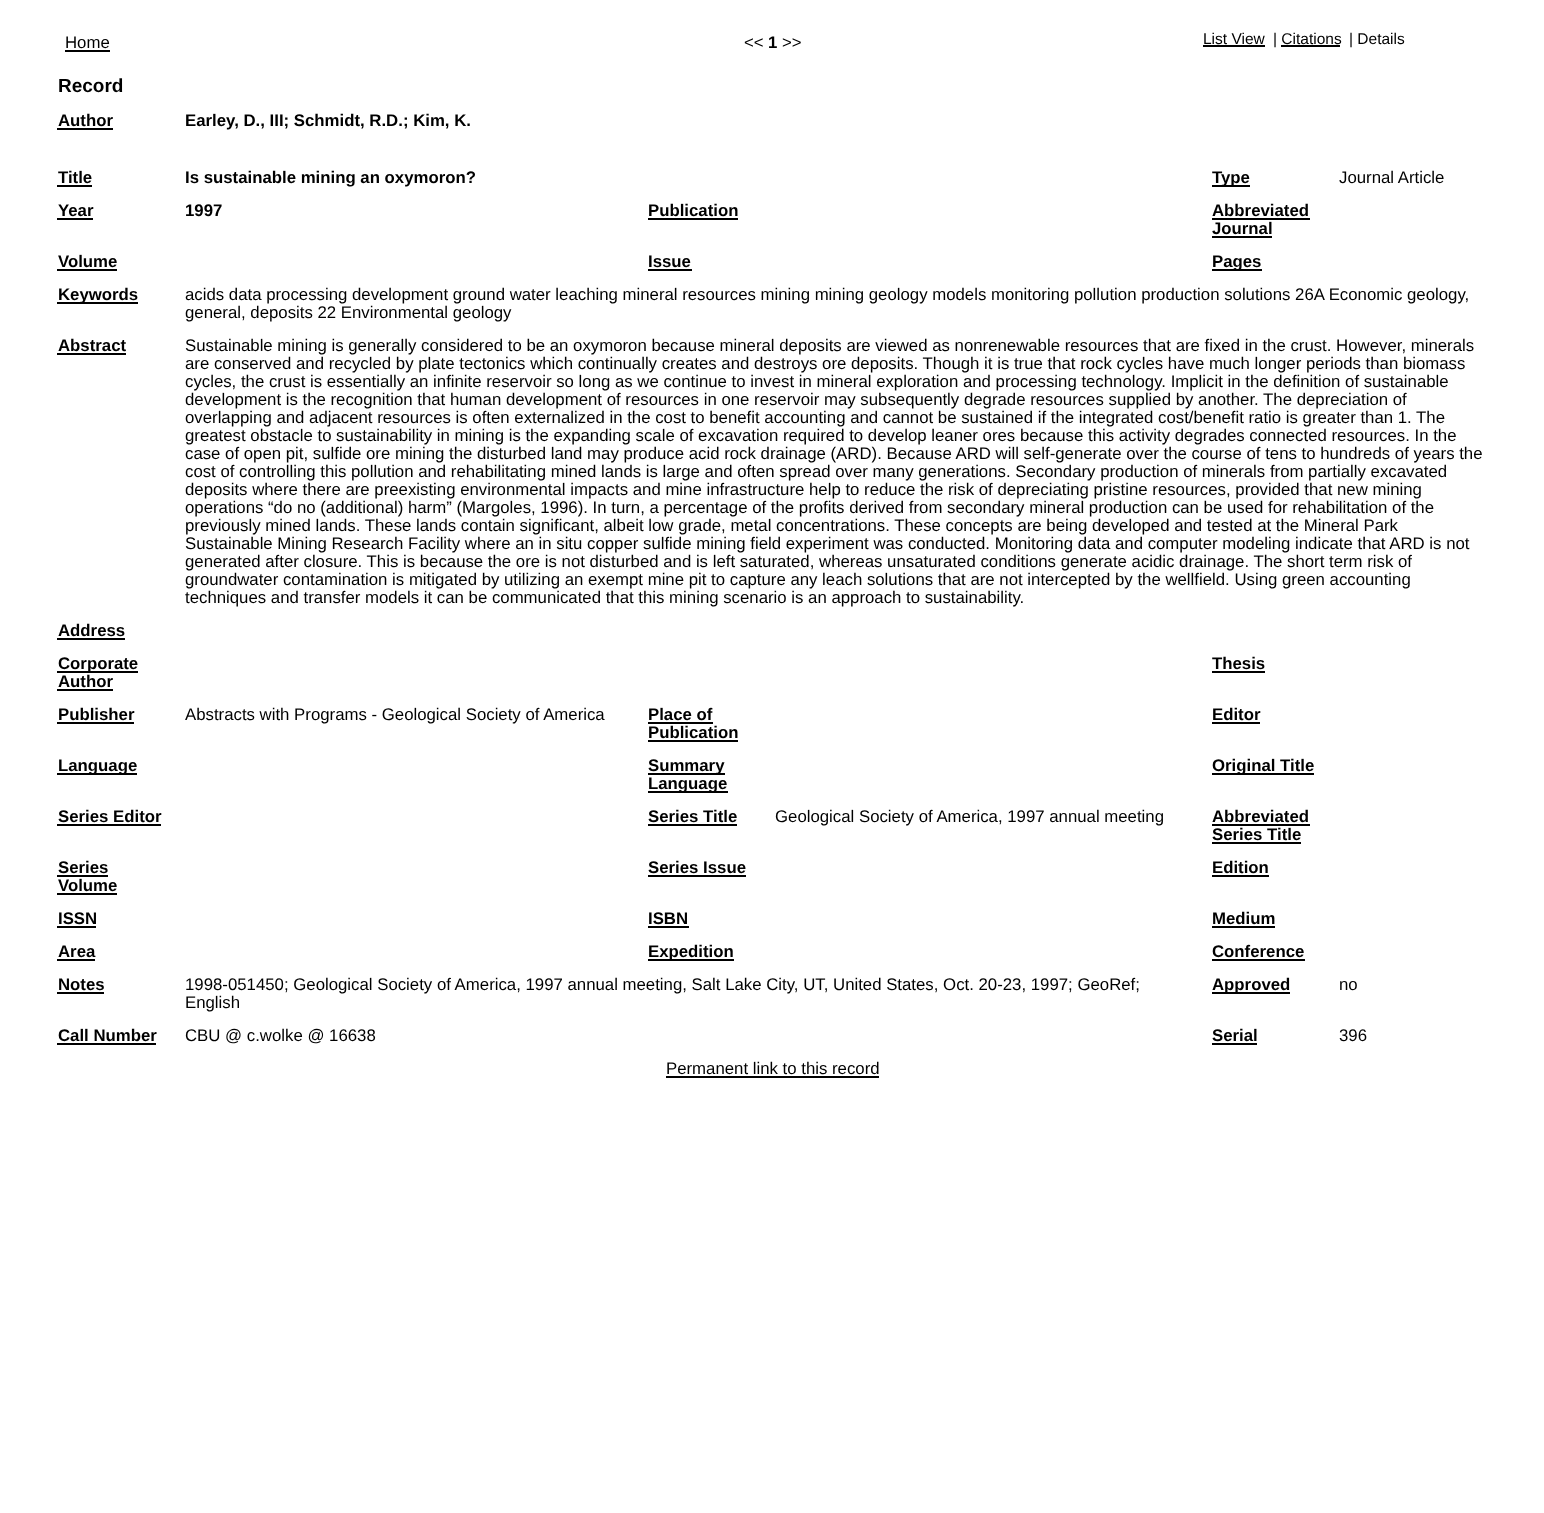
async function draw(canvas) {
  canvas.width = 1544
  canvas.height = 1513
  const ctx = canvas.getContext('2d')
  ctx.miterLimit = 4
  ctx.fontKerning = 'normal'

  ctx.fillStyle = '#fff'
  ctx.fillRect(0, 0, 1544, 1513)
  ctx.font = '16.8px Liberation Sans'
  ctx.fillStyle = '#000'
  ctx.fillText('Home', 65, 48)
  ctx.fillRect(65, 50, 45, 2)
  ctx.fillText('<<', 744, 48)
  ctx.font = 'bold 16.8px Liberation Sans'
  ctx.fillText('1', 768, 48)
  ctx.font = '16.8px Liberation Sans'
  ctx.fillText('>>', 782, 48)
  ctx.font = '15.5px Liberation Sans'
  ctx.fillText('List View', 1203, 44)
  ctx.fillRect(1203, 45, 62, 2)
  ctx.fillText('| Citations', 1273, 44)
  ctx.fillRect(1281, 45, 59, 2)
  ctx.fillText('| Details', 1349, 44)
  ctx.font = 'bold 19px Liberation Sans'
  ctx.fillText('Record', 58, 92)
  ctx.font = 'bold 16.8px Liberation Sans'
  ctx.fillText('Author', 58, 126)
  ctx.fillRect(57, 128, 56, 2)
  ctx.fillText('Earley, D., III; Schmidt, R.D.; Kim, K.', 185, 126)
  ctx.fillText('Title', 58, 183)
  ctx.fillRect(57, 185, 35, 2)
  ctx.fillText('Is sustainable mining an oxymoron?', 185, 183)
  ctx.fillRect(1212, 185, 38, 2)
  ctx.fillText('Type', 1212, 183)
  ctx.font = '16.8px Liberation Sans'
  ctx.fillText('Journal Article', 1339, 183)
  ctx.font = 'bold 16.8px Liberation Sans'
  ctx.fillText('Year', 58, 216)
  ctx.fillRect(57, 218, 36, 2)
  ctx.fillText('1997', 185, 216)
  ctx.fillText('Publication', 648, 216)
  ctx.fillRect(648, 218, 90, 2)
  ctx.fillText('Abbreviated', 1212, 216)
  ctx.fillRect(1212, 218, 98, 2)
  ctx.fillText('Journal', 1212, 234)
  ctx.fillRect(1212, 236, 60, 2)
  ctx.fillText('Volume', 58, 267)
  ctx.fillRect(57, 269, 60, 2)
  ctx.fillText('Issue', 648, 267)
  ctx.fillRect(648, 269, 44, 2)
  ctx.fillRect(1212, 269, 50, 2)
  ctx.fillText('Pages', 1212, 267)
  ctx.fillRect(57, 302, 81, 2)
  ctx.fillText('Keywords', 58, 300)
  ctx.font = '16.8px Liberation Sans'
  ctx.fillText('acids data processing development ground water leaching mineral resources mining mining geology models monitoring pollution production solutions 26A Economic geology,', 185, 300)
  ctx.fillText('general, deposits 22 Environmental geology', 185, 318)
  ctx.font = 'bold 16.8px Liberation Sans'
  ctx.fillText('Abstract', 58, 351)
  ctx.fillRect(57, 353, 69, 2)
  ctx.font = '16.8px Liberation Sans'
  ctx.fillText('Sustainable mining is generally considered to be an oxymoron because mineral deposits are viewed as nonrenewable resources that are fixed in the crust. However, minerals', 185, 351)
  ctx.fillText('are conserved and recycled by plate tectonics which continually creates and destroys ore deposits. Though it is true that rock cycles have much longer periods than biomass', 185, 369)
  ctx.fillText('cycles, the crust is essentially an infinite reservoir so long as we continue to invest in mineral exploration and processing technology. Implicit in the definition of sustainable', 185, 387)
  ctx.fillText('development is the recognition that human development of resources in one reservoir may subsequently degrade resources supplied by another. The depreciation of', 185, 405)
  ctx.fillText('overlapping and adjacent resources is often externalized in the cost to benefit accounting and cannot be sustained if the integrated cost/benefit ratio is greater than 1. The', 185, 423)
  ctx.fillText('greatest obstacle to sustainability in mining is the expanding scale of excavation required to develop leaner ores because this activity degrades connected resources. In the', 185, 441)
  ctx.fillText('case of open pit, sulfide ore mining the disturbed land may produce acid rock drainage (ARD). Because ARD will self-generate over the course of tens to hundreds of years the', 185, 459)
  ctx.fillText('cost of controlling this pollution and rehabilitating mined lands is large and often spread over many generations. Secondary production of minerals from partially excavated', 185, 477)
  ctx.fillText('deposits where there are preexisting environmental impacts and mine infrastructure help to reduce the risk of depreciating pristine resources, provided that new mining', 185, 495)
  ctx.fillText('operations “do no (additional) harm” (Margoles, 1996). In turn, a percentage of the profits derived from secondary mineral production can be used for rehabilitation of the', 185, 513)
  ctx.fillText('previously mined lands. These lands contain significant, albeit low grade, metal concentrations. These concepts are being developed and tested at the Mineral Park', 185, 531)
  ctx.fillText('Sustainable Mining Research Facility where an in situ copper sulfide mining field experiment was conducted. Monitoring data and computer modeling indicate that ARD is not', 185, 549)
  ctx.fillText('generated after closure. This is because the ore is not disturbed and is left saturated, whereas unsaturated conditions generate acidic drainage. The short term risk of', 185, 567)
  ctx.fillText('groundwater contamination is mitigated by utilizing an exempt mine pit to capture any leach solutions that are not intercepted by the wellfield. Using green accounting', 185, 585)
  ctx.fillText('techniques and transfer models it can be communicated that this mining scenario is an approach to sustainability.', 185, 603)
  ctx.font = 'bold 16.8px Liberation Sans'
  ctx.fillText('Address', 58, 636)
  ctx.fillRect(57, 638, 68, 2)
  ctx.fillRect(57, 671, 81, 2)
  ctx.fillText('Corporate', 58, 669)
  ctx.fillText('Author', 58, 687)
  ctx.fillRect(57, 689, 56, 2)
  ctx.fillText('Thesis', 1212, 669)
  ctx.fillRect(1212, 671, 53, 2)
  ctx.fillText('Publisher', 58, 720)
  ctx.fillRect(57, 722, 77, 2)
  ctx.font = '16.8px Liberation Sans'
  ctx.fillText('Abstracts with Programs - Geological Society of America', 185, 720)
  ctx.font = 'bold 16.8px Liberation Sans'
  ctx.fillText('Place of', 648, 720)
  ctx.fillRect(648, 722, 65, 2)
  ctx.fillText('Publication', 648, 738)
  ctx.fillRect(648, 740, 90, 2)
  ctx.fillText('Editor', 1212, 720)
  ctx.fillRect(1212, 722, 48, 2)
  ctx.fillRect(57, 773, 80, 2)
  ctx.fillText('Language', 58, 771)
  ctx.fillRect(648, 773, 77, 2)
  ctx.fillText('Summary', 648, 771)
  ctx.fillRect(648, 791, 80, 2)
  ctx.fillText('Language', 648, 789)
  ctx.fillRect(1212, 773, 102, 2)
  ctx.fillText('Original Title', 1212, 771)
  ctx.fillText('Series Editor', 58, 822)
  ctx.fillRect(57, 824, 104, 2)
  ctx.fillText('Series Title', 648, 822)
  ctx.fillRect(648, 824, 89, 2)
  ctx.font = '16.8px Liberation Sans'
  ctx.fillText('Geological Society of America, 1997 annual meeting', 775, 822)
  ctx.font = 'bold 16.8px Liberation Sans'
  ctx.fillText('Abbreviated', 1212, 822)
  ctx.fillRect(1212, 824, 98, 2)
  ctx.fillText('Series Title', 1212, 840)
  ctx.fillRect(1212, 842, 89, 2)
  ctx.fillText('Series', 58, 873)
  ctx.fillRect(57, 875, 51, 2)
  ctx.fillText('Volume', 58, 891)
  ctx.fillRect(57, 893, 60, 2)
  ctx.fillText('Series Issue', 648, 873)
  ctx.fillRect(648, 875, 98, 2)
  ctx.fillText('Edition', 1212, 873)
  ctx.fillRect(1212, 875, 57, 2)
  ctx.fillText('ISSN', 58, 924)
  ctx.fillRect(57, 926, 39, 2)
  ctx.fillText('ISBN', 648, 924)
  ctx.fillRect(648, 926, 41, 2)
  ctx.fillText('Medium', 1212, 924)
  ctx.fillRect(1212, 926, 63, 2)
  ctx.fillText('Area', 58, 957)
  ctx.fillRect(57, 959, 38, 2)
  ctx.fillRect(648, 959, 86, 2)
  ctx.fillText('Expedition', 648, 957)
  ctx.fillText('Conference', 1212, 957)
  ctx.fillRect(1212, 959, 93, 2)
  ctx.fillText('Notes', 58, 990)
  ctx.fillRect(57, 992, 47, 2)
  ctx.font = '16.8px Liberation Sans'
  ctx.fillText('1998-051450; Geological Society of America, 1997 annual meeting, Salt Lake City, UT, United States, Oct. 20-23, 1997; GeoRef;', 185, 990)
  ctx.fillText('English', 185, 1008)
  ctx.fillRect(1212, 992, 78, 2)
  ctx.font = 'bold 16.8px Liberation Sans'
  ctx.fillText('Approved', 1212, 990)
  ctx.font = '16.8px Liberation Sans'
  ctx.fillText('no', 1339, 990)
  ctx.font = 'bold 16.8px Liberation Sans'
  ctx.fillText('Call Number', 58, 1041)
  ctx.fillRect(57, 1043, 99, 2)
  ctx.font = '16.8px Liberation Sans'
  ctx.fillText('CBU @ c.wolke @ 16638', 185, 1041)
  ctx.font = 'bold 16.8px Liberation Sans'
  ctx.fillText('Serial', 1212, 1041)
  ctx.fillRect(1212, 1043, 45, 2)
  ctx.font = '16.8px Liberation Sans'
  ctx.fillText('396', 1339, 1041)
  ctx.fillText('Permanent link to this record', 666, 1074)
  ctx.fillRect(666, 1076, 213, 2)
}

draw(document.querySelector('canvas'))
